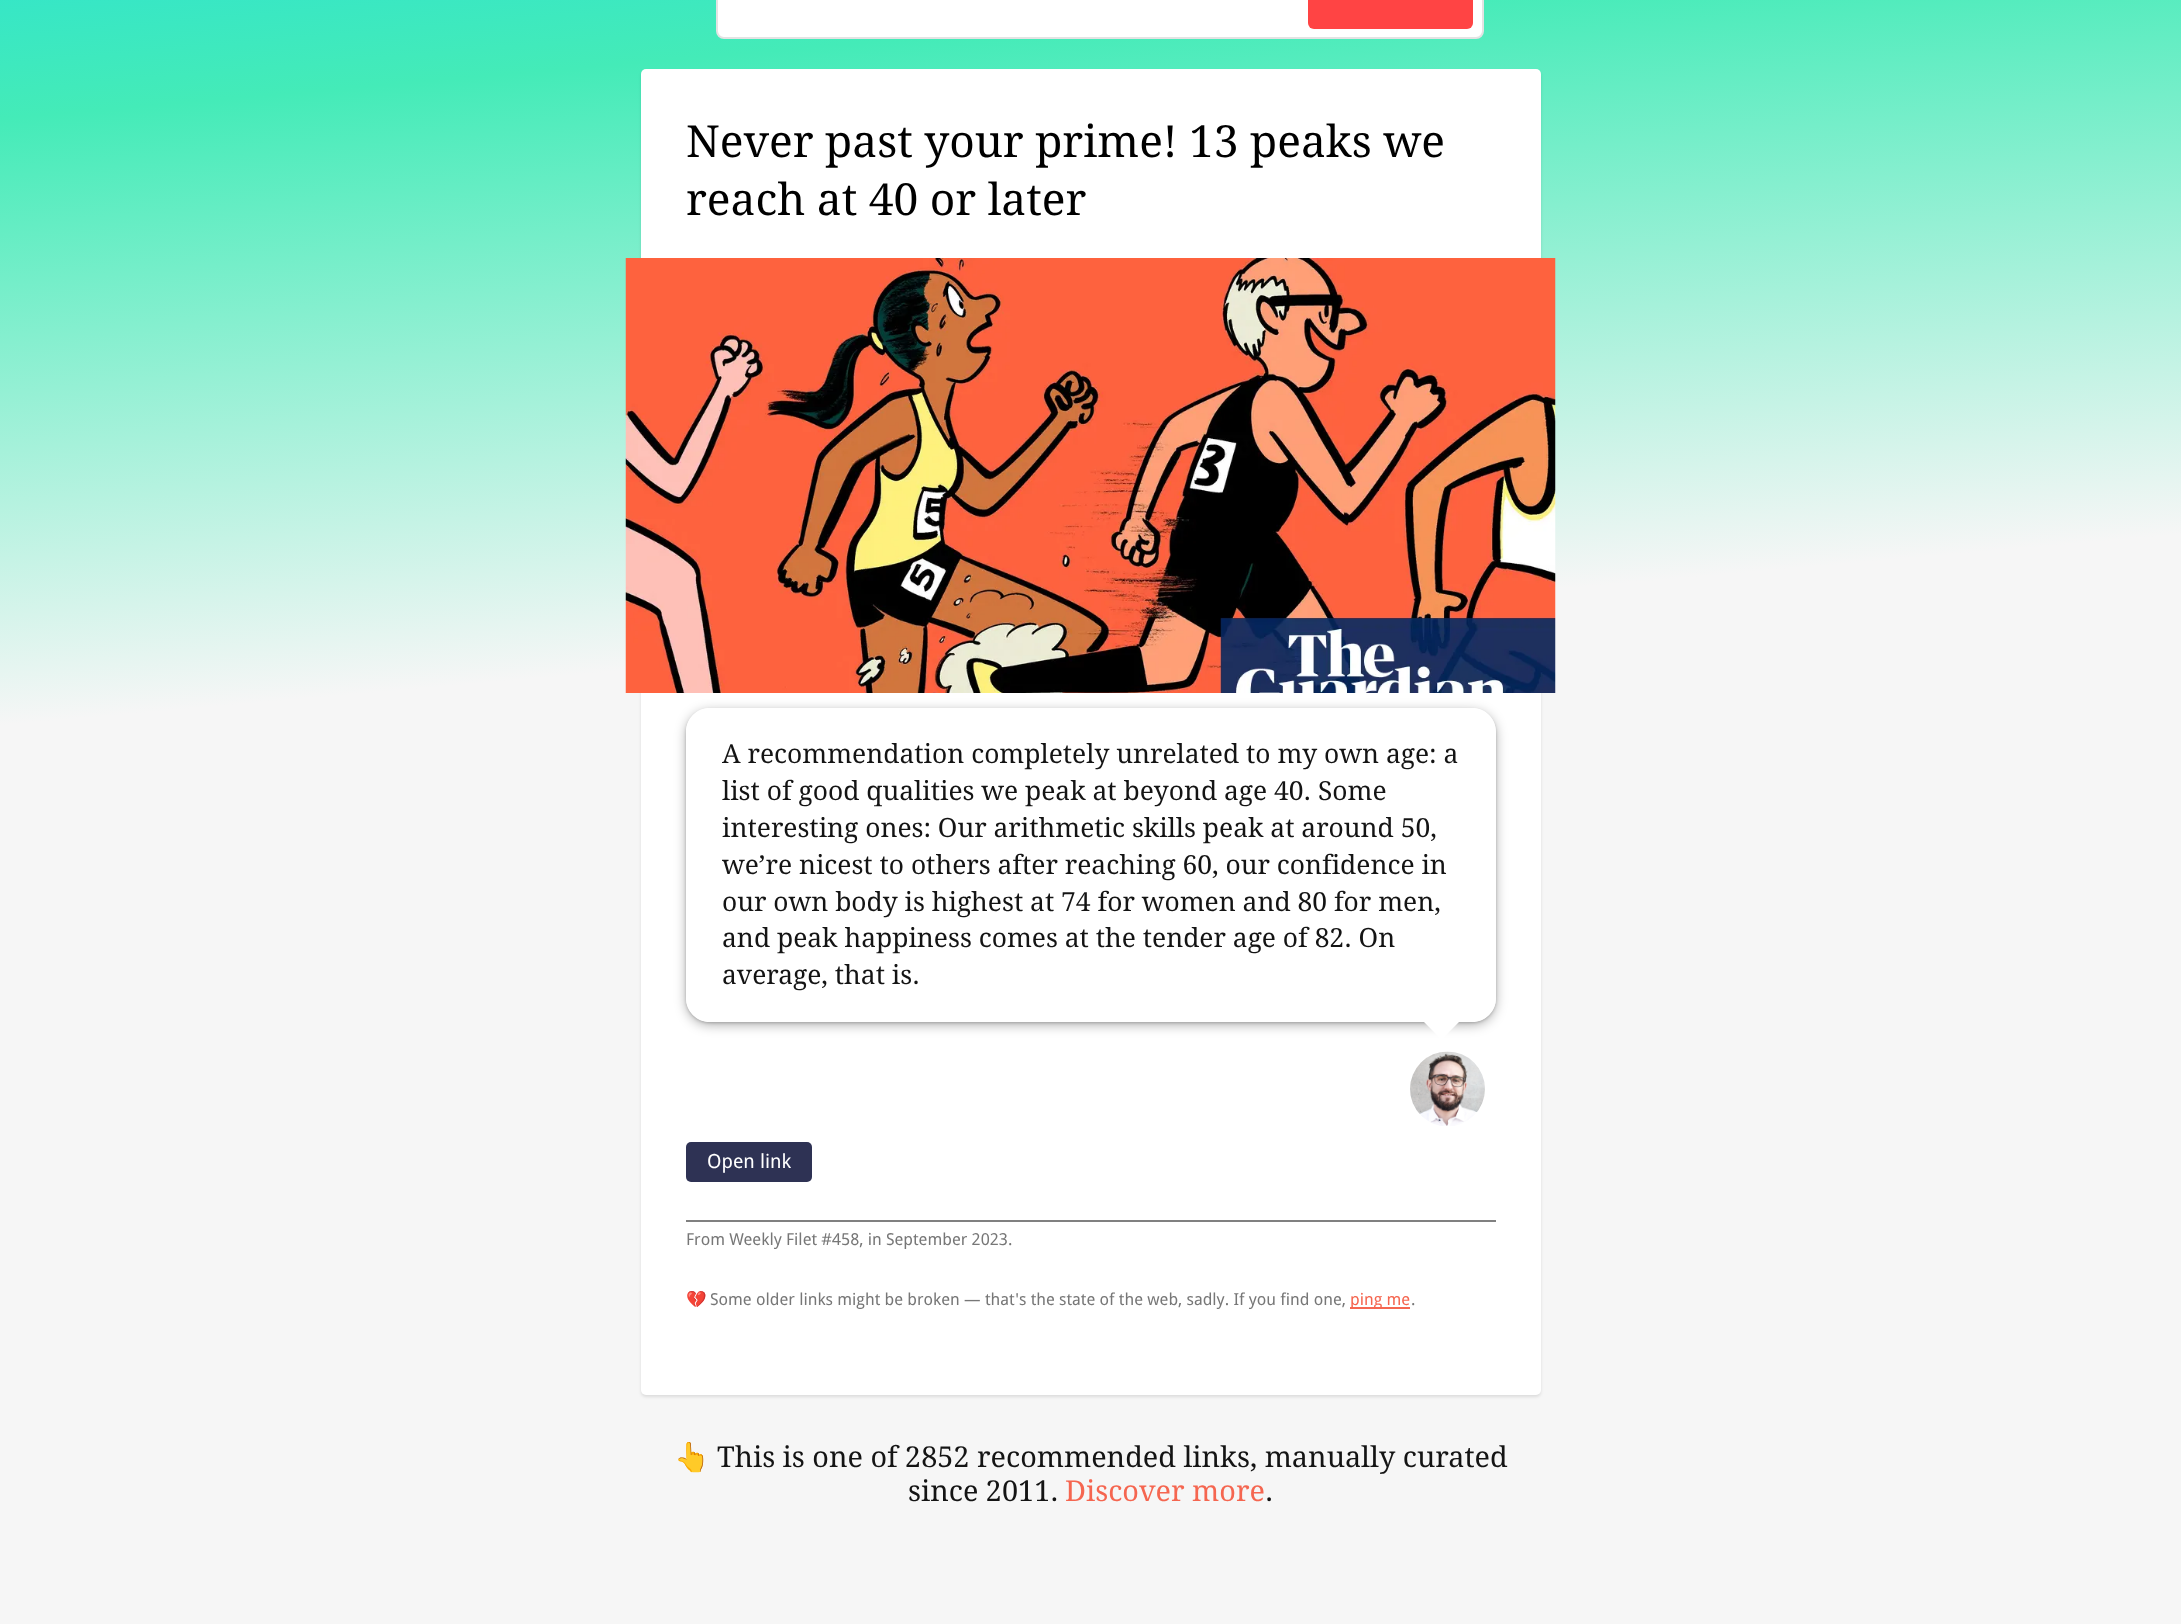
async function draw(canvas) {
  canvas.width = 2181
  canvas.height = 1624
  const ctx = canvas.getContext('2d')
  ctx.miterLimit = 4
  ctx.fontKerning = 'normal'
  async function loadImage(src) {
    const img = new Image()
    img.src = src
    await img.decode()
    return img
  }
  let gradient

  ctx.fillStyle = '#fff'
  ctx.fillRect(0, 0, 2181, 1624)
  gradient = ctx.createLinearGradient(985, -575, 1196, 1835)
  gradient.addColorStop(0, '#00d4ff')
  gradient.addColorStop(0.25, '#44ebb8')
  gradient.addColorStop(0.5, '#f6f6f6')
  ctx.fillStyle = gradient
  ctx.fillRect(0, 0, 2181, 1624)
  ctx.fillStyle = '#fff'
  ctx.beginPath()
  ctx.roundRect(717, -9, 766, 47, 7)
  ctx.fill()
  ctx.strokeStyle = '#e3e3e3'
  ctx.lineWidth = 2
  ctx.stroke()
  ctx.fillStyle = '#f44'
  ctx.beginPath()
  ctx.roundRect(1308, -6, 165, 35, 6)
  ctx.fill()
  ctx.fillStyle = '#0000001a'
  ctx.filter = 'blur(1.5px)'
  ctx.beginPath()
  ctx.roundRect(641, 71, 900, 1326, 5)
  ctx.fill()
  ctx.filter = 'none'
  ctx.fillStyle = '#fff'
  ctx.beginPath()
  ctx.roundRect(641, 69, 900, 1326, 5)
  ctx.fill()
  ctx.font = '44.25px Droid Serif'
  ctx.fillStyle = '#000'
  ctx.fillText('Never past your prime! 13 peaks we', 686, 157)
  ctx.fillText('reach at 40 or later', 686, 215)
  ctx.drawImage(await loadImage('image0.png'), 625, 258, 931, 435)
  ctx.save()
  ctx.beginPath()
  ctx.moveTo(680, 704)
  ctx.lineTo(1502, 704)
  ctx.lineTo(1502, 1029)
  ctx.lineTo(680, 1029)
  ctx.closePath()
  ctx.moveTo(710, 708)
  ctx.lineTo(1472, 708)
  ctx.bezierCurveTo(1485.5, 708, 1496, 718.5, 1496, 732)
  ctx.lineTo(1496, 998)
  ctx.bezierCurveTo(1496, 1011.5, 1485.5, 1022, 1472, 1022)
  ctx.lineTo(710, 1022)
  ctx.bezierCurveTo(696.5, 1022, 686, 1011.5, 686, 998)
  ctx.lineTo(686, 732)
  ctx.bezierCurveTo(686, 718.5, 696.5, 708, 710, 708)
  ctx.closePath()
  ctx.clip('evenodd')
  ctx.fillStyle = '#00000033'
  ctx.filter = 'blur(1.5px)'
  ctx.beginPath()
  ctx.roundRect(686, 710, 810, 313, 24)
  ctx.fill()
  ctx.filter = 'none'
  ctx.restore()
  ctx.save()
  ctx.beginPath()
  ctx.moveTo(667, 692)
  ctx.lineTo(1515, 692)
  ctx.lineTo(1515, 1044)
  ctx.lineTo(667, 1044)
  ctx.closePath()
  ctx.moveTo(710, 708)
  ctx.lineTo(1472, 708)
  ctx.bezierCurveTo(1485.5, 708, 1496, 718.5, 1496, 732)
  ctx.lineTo(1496, 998)
  ctx.bezierCurveTo(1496, 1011.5, 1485.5, 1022, 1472, 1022)
  ctx.lineTo(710, 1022)
  ctx.bezierCurveTo(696.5, 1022, 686, 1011.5, 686, 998)
  ctx.lineTo(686, 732)
  ctx.bezierCurveTo(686, 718.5, 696.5, 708, 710, 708)
  ctx.closePath()
  ctx.clip('evenodd')
  ctx.fillStyle = '#0000004d'
  ctx.filter = 'blur(6px)'
  ctx.beginPath()
  ctx.roundRect(686, 711, 810, 314, 24)
  ctx.fill()
  ctx.filter = 'none'
  ctx.restore()
  ctx.fillStyle = '#ffffffed'
  ctx.beginPath()
  ctx.roundRect(686, 708, 810, 314, 24)
  ctx.fill()
  ctx.font = '26.4px Droid Serif'
  ctx.fillStyle = '#141414'
  ctx.fillText('A recommendation completely unrelated to my own age: a', 722, 763)
  ctx.fillText('list of good qualities we peak at beyond age 40. Some', 722, 800)
  ctx.fillText('interesting ones: Our arithmetic skills peak at around 50,', 722, 837)
  ctx.fillText('we’re nicest to others after reaching 60, our confidence in', 722, 874)
  ctx.fillText('our own body is highest at 74 for women and 80 for men,', 722, 911)
  ctx.fillText('and peak happiness comes at the tender age of 82. On', 722, 947)
  ctx.fillText('average, that is.', 722, 984)
  ctx.fillStyle = '#fff'
  ctx.beginPath()
  ctx.moveTo(1423.5, 1021.5)
  ctx.lineTo(1459.5, 1021.5)
  ctx.lineTo(1441.5, 1039.5)
  ctx.closePath()
  ctx.fill()
  ctx.drawImage(await loadImage('image1.png'), 1410, 1051, 75, 75)
  ctx.fillStyle = '#2e3254'
  ctx.beginPath()
  ctx.roundRect(686, 1142, 126, 40, 5)
  ctx.fill()
  ctx.font = '19.5px Droid Sans'
  ctx.fillStyle = '#fff'
  ctx.fillText('Open link', 707, 1168)
  ctx.fillStyle = '#808080'
  ctx.fillRect(686, 1220, 810, 2)
  ctx.font = '16.5px Droid Sans'
  ctx.fillStyle = '#777'
  ctx.fillText('From Weekly Filet #458, in September 2023.', 686, 1245)
  ctx.font = '16.5px Noto Color Emoji'
  ctx.fillText('💔', 686, 1305)
  ctx.font = '16.5px Droid Sans'
  ctx.fillText('Some older links might be broken — that\'s the state of the web, sadly. If you find one,', 710, 1305)
  ctx.fillStyle = '#f56650'
  ctx.fillRect(1350, 1307, 60, 2)
  ctx.fillText('ping me', 1350, 1305)
  ctx.fillStyle = '#777'
  ctx.fillText('.', 1411, 1305)
  ctx.font = '28.8px Noto Color Emoji'
  ctx.fillStyle = '#141414'
  ctx.fillText('👆', 674, 1467)
  ctx.font = '28.8px Droid Serif'
  ctx.fillText('This is one of 2852 recommended links, manually curated', 717, 1467)
  ctx.fillText('since 2011.', 908, 1501)
  ctx.fillStyle = '#f56650'
  ctx.fillText('Discover more', 1065, 1501)
  ctx.fillStyle = '#141414'
  ctx.fillText('.', 1265, 1501)
}

draw(document.querySelector('canvas'))
